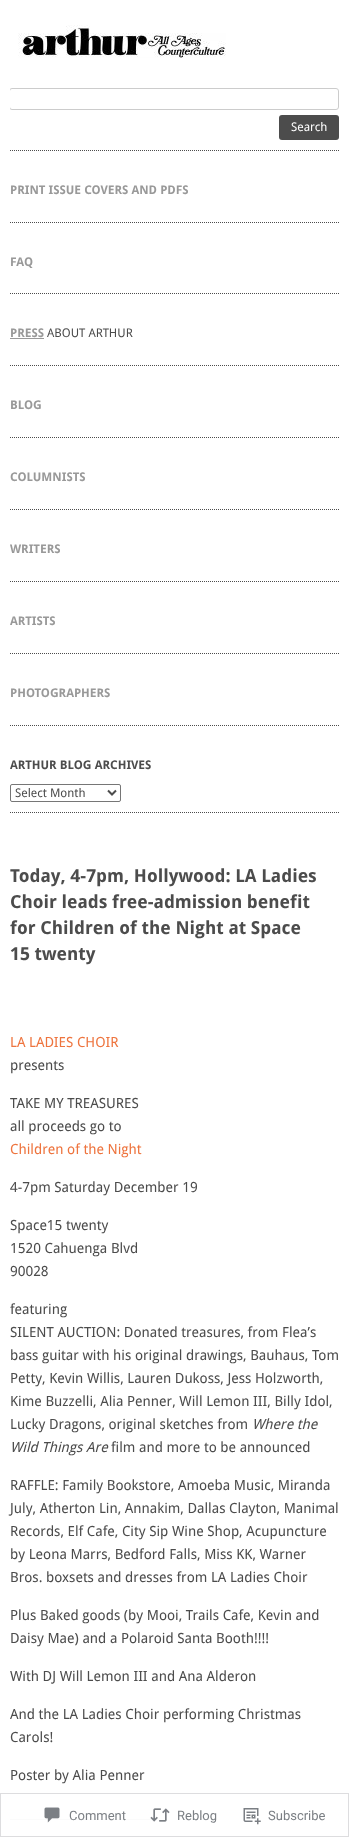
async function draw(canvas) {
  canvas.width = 349
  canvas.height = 1837
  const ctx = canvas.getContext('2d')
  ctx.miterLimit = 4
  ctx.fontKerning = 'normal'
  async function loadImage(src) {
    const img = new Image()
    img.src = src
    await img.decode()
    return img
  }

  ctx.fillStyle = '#fff'
  ctx.fillRect(0, 0, 349, 1837)
  ctx.drawImage(await loadImage('image0.png'), 18, 25, 208, 33)
  ctx.beginPath()
  ctx.moveTo(10, 150.5)
  ctx.lineTo(339, 150.5)
  ctx.strokeStyle = '#4c4c4c'
  ctx.setLineDash([1, 1])
  ctx.stroke()
  ctx.save()
  ctx.beginPath()
  ctx.rect(10, 88, 329, 62)
  ctx.clip()
  ctx.beginPath()
  ctx.roundRect(9.5, 88.5, 329, 21, 2.5)
  ctx.strokeStyle = '#ccc'
  ctx.setLineDash([])
  ctx.stroke()
  ctx.restore()
  ctx.fillStyle = '#4c4c4c'
  ctx.beginPath()
  ctx.roundRect(279, 115, 60, 25, 3)
  ctx.fill()
  ctx.font = '12px Droid Sans'
  ctx.fillStyle = '#fff'
  ctx.fillText('Search', 291, 131)
  ctx.beginPath()
  ctx.moveTo(10, 222.5)
  ctx.lineTo(339, 222.5)
  ctx.stroke()
  ctx.font = 'bold 12px Droid Sans'
  ctx.fillStyle = '#999'
  ctx.fillText('PRINT ISSUE COVERS AND PDFS', 10, 194)
  ctx.beginPath()
  ctx.moveTo(10, 293.5)
  ctx.lineTo(339, 293.5)
  ctx.stroke()
  ctx.fillText('FAQ', 10, 266)
  ctx.beginPath()
  ctx.moveTo(10, 365.5)
  ctx.lineTo(339, 365.5)
  ctx.stroke()
  ctx.fillText('PRESS', 10, 337)
  ctx.fillRect(10, 338, 34, 1)
  ctx.font = '12px Droid Sans'
  ctx.fillStyle = '#4c4c4c'
  ctx.fillText('ABOUT ARTHUR', 47, 337)
  ctx.beginPath()
  ctx.moveTo(10, 437.5)
  ctx.lineTo(339, 437.5)
  ctx.stroke()
  ctx.font = 'bold 12px Droid Sans'
  ctx.fillStyle = '#999'
  ctx.fillText('BLOG', 10, 409)
  ctx.beginPath()
  ctx.moveTo(10, 509.5)
  ctx.lineTo(339, 509.5)
  ctx.stroke()
  ctx.fillText('COLUMNISTS', 10, 481)
  ctx.beginPath()
  ctx.moveTo(10, 581.5)
  ctx.lineTo(339, 581.5)
  ctx.stroke()
  ctx.fillText('WRITERS', 10, 553)
  ctx.beginPath()
  ctx.moveTo(10, 653.5)
  ctx.lineTo(339, 653.5)
  ctx.stroke()
  ctx.fillText('ARTISTS', 10, 625)
  ctx.beginPath()
  ctx.moveTo(10, 725.5)
  ctx.lineTo(339, 725.5)
  ctx.stroke()
  ctx.fillText('PHOTOGRAPHERS', 10, 697)
  ctx.beginPath()
  ctx.moveTo(10, 812.5)
  ctx.lineTo(339, 812.5)
  ctx.stroke()
  ctx.fillStyle = '#4c4c4c'
  ctx.fillText('ARTHUR BLOG ARCHIVES', 10, 769)
  ctx.beginPath()
  ctx.roundRect(10.5, 784.5, 110, 17, 1.5)
  ctx.strokeStyle = '#767676'
  ctx.setLineDash([])
  ctx.stroke()
  ctx.beginPath()
  ctx.moveTo(108, 790.5)
  ctx.lineTo(112, 794.5)
  ctx.lineTo(116, 790.5)
  ctx.strokeStyle = '#4c4c4c'
  ctx.lineWidth = 2
  ctx.stroke()
  ctx.font = '12px Droid Sans'
  ctx.fillText('Select Month', 15, 797)
  ctx.font = 'bold 18px Droid Sans'
  ctx.fillText('Today, 4-7pm, Hollywood: LA Ladies', 10, 882)
  ctx.fillText('Choir leads free-admission benefit', 10, 908)
  ctx.fillText('for Children of the Night at Space', 10, 934)
  ctx.fillText('15 twenty', 10, 960)
  ctx.font = '14px Droid Sans'
  ctx.fillStyle = '#ee743e'
  ctx.fillText('LA LADIES CHOIR', 10, 1047)
  ctx.fillStyle = '#4c4c4c'
  ctx.fillText('presents', 10, 1070)
  ctx.fillText('TAKE MY TREASURES', 10, 1108)
  ctx.fillText('all proceeds go to', 10, 1131)
  ctx.fillStyle = '#ee743e'
  ctx.fillText('Children of the Night', 10, 1154)
  ctx.fillStyle = '#4c4c4c'
  ctx.fillText('4-7pm Saturday December 19', 10, 1192)
  ctx.fillText('Space15 twenty', 10, 1230)
  ctx.fillText('1520 Cahuenga Blvd', 10, 1253)
  ctx.fillText('90028', 10, 1276)
  ctx.fillText('featuring', 10, 1314)
  ctx.fillText('SILENT AUCTION: Donated treasures, from Flea’s', 10, 1337)
  ctx.fillText('bass guitar with his original drawings, Bauhaus, Tom', 10, 1360)
  ctx.fillText('Petty, Kevin Willis, Lauren Dukoss, Jess Holzworth,', 10, 1383)
  ctx.fillText('Kime Buzzelli, Alia Penner, Will Lemon III, Billy Idol,', 10, 1406)
  ctx.fillText('Lucky Dragons, original sketches from', 10, 1429)
  ctx.font = 'italic 14px Droid Sans'
  ctx.fillText('Where the', 252, 1429)
  ctx.fillText('Wild Things Are', 10, 1452)
  ctx.font = '14px Droid Sans'
  ctx.fillText('film and more to be announced', 111, 1452)
  ctx.fillText('RAFFLE: Family Bookstore, Amoeba Music, Miranda', 10, 1490)
  ctx.fillText('July, Atherton Lin, Annakim, Dallas Clayton, Manimal', 10, 1513)
  ctx.fillText('Records, Elf Cafe, City Sip Wine Shop, Acupuncture', 10, 1536)
  ctx.fillText('by Leona Marrs, Bedford Falls, Miss KK, Warner', 10, 1559)
  ctx.fillText('Bros. boxsets and dresses from LA Ladies Choir', 10, 1582)
  ctx.fillText('Plus Baked goods (by Mooi, Trails Cafe, Kevin and', 10, 1620)
  ctx.fillText('Daisy Mae) and a Polaroid Santa Booth!!!!', 10, 1643)
  ctx.fillText('With DJ Will Lemon III and Ana Alderon', 10, 1681)
  ctx.fillText('And the LA Ladies Choir performing Christmas', 10, 1719)
  ctx.fillText('Carols!', 10, 1742)
  ctx.fillText('Poster by Alia Penner', 10, 1780)
  ctx.fillStyle = '#fbfbfb'
  ctx.fillRect(10, 1819, 143, 1)
  ctx.strokeStyle = '#dcdcdefa'
  ctx.lineWidth = 1
  ctx.strokeRect(0.5, 1793.5, 348, 43)
  ctx.drawImage(await loadImage('image1.png'), 44, 1807, 16, 16)
  ctx.font = '13px Roboto'
  ctx.fillStyle = '#7b7f84'
  ctx.fillText('Comment', 69, 1820)
  ctx.drawImage(await loadImage('image2.png'), 150, 1808, 20, 14)
  ctx.fillText('Reblog', 177, 1820)
  ctx.drawImage(await loadImage('image3.png'), 243, 1808, 18, 17)
  ctx.fillText('Subscribe', 268, 1820)
}

draw(document.querySelector('canvas'))
